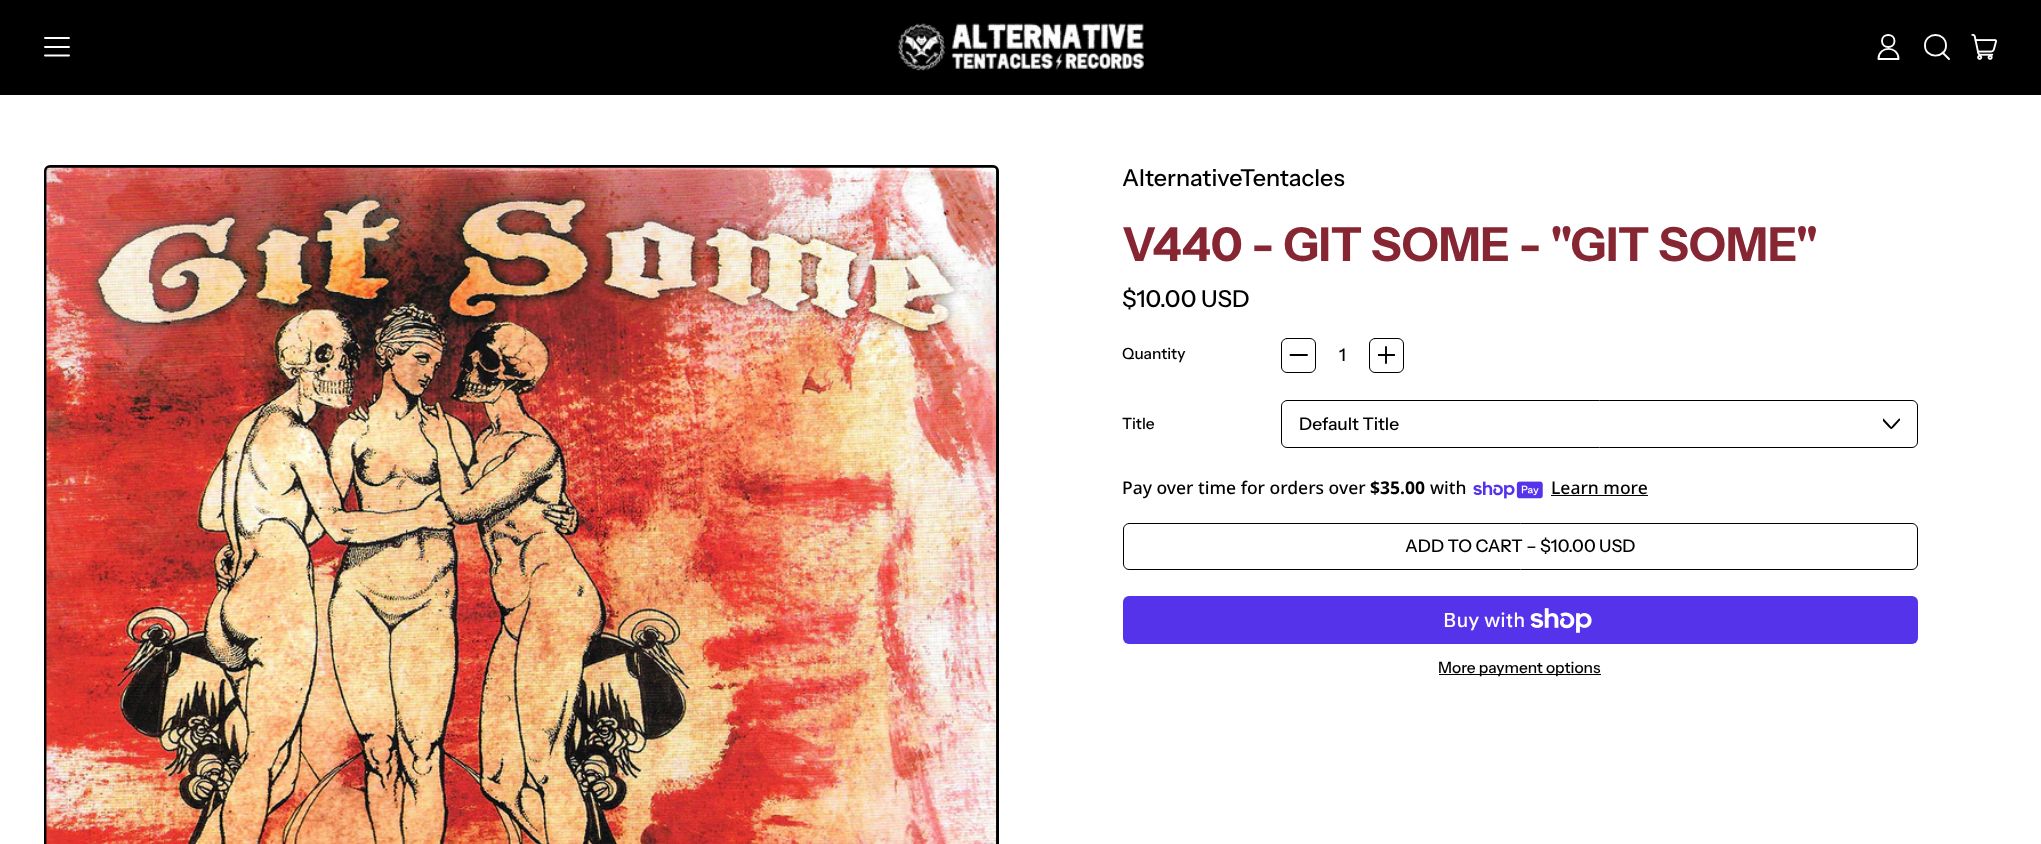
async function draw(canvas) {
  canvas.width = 2041
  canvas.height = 844
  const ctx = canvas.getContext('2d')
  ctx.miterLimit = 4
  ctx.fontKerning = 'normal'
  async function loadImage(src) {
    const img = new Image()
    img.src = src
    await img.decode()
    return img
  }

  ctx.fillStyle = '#000'
  ctx.fillRect(0, 0, 2041, 844)
  ctx.beginPath()
  ctx.moveTo(69, 55.5)
  ctx.lineTo(45, 55.5)
  ctx.moveTo(69, 47)
  ctx.lineTo(45, 47)
  ctx.moveTo(69, 38)
  ctx.lineTo(45, 38)
  ctx.strokeStyle = '#fff'
  ctx.lineWidth = 1.9
  ctx.lineCap = 'round'
  ctx.lineJoin = 'round'
  ctx.stroke()
  ctx.drawImage(await loadImage('image0.png'), 897, 23, 247, 48)
  ctx.beginPath()
  ctx.moveTo(1882, 41)
  ctx.bezierCurveTo(1882, 49, 1894.5, 49, 1894.5, 41)
  ctx.bezierCurveTo(1894.5, 33, 1882, 33, 1882, 41)
  ctx.closePath()
  ctx.moveTo(1878.5, 59)
  ctx.bezierCurveTo(1878.5, 45.5, 1898.5, 45.5, 1898.5, 59)
  ctx.closePath()
  ctx.stroke()
  ctx.beginPath()
  ctx.moveTo(1925, 45.5)
  ctx.bezierCurveTo(1925, 59, 1946, 59, 1946, 45.5)
  ctx.bezierCurveTo(1946, 31.5, 1925, 31.5, 1925, 45.5)
  ctx.closePath()
  ctx.moveTo(1949, 59)
  ctx.lineTo(1942.5, 52.5)
  ctx.stroke()
  ctx.drawImage(await loadImage('image1.png'), 1971, 34, 26, 26)
  ctx.fillStyle = '#fff'
  ctx.fillRect(0, 95, 2041, 749)
  ctx.beginPath()
  ctx.roundRect(45.5, 166.5, 952, 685, 4.5)
  ctx.strokeStyle = '#000'
  ctx.lineWidth = 3
  ctx.lineJoin = 'miter'
  ctx.stroke()
  ctx.drawImage(await loadImage('image2.png'), 46, 167, 951, 677)
  ctx.font = '500 23.4px Instrument Sans'
  ctx.fillStyle = '#000'
  ctx.fillText('AlternativeTentacles', 1122, 186)
  ctx.font = 'bold 46.75px Instrument Sans'
  ctx.fillStyle = '#862633'
  ctx.fillText('V440 - GIT SOME - "GIT SOME"', 1122, 261)
  ctx.font = '500 23.4px Instrument Sans'
  ctx.fillStyle = '#000'
  ctx.fillText('$10.00 USD', 1122, 307)
  ctx.font = '500 15.5px Instrument Sans'
  ctx.fillText('Quantity', 1122, 359)
  ctx.beginPath()
  ctx.roundRect(1281.5, 338.5, 34, 34, 5.5)
  ctx.lineWidth = 1
  ctx.stroke()
  ctx.beginPath()
  ctx.moveTo(1307, 355)
  ctx.lineTo(1290.5, 355)
  ctx.lineWidth = 1.9
  ctx.lineJoin = 'round'
  ctx.stroke()
  ctx.font = '500 17.5px Instrument Sans'
  ctx.fillText('1', 1339, 361)
  ctx.beginPath()
  ctx.roundRect(1369.5, 338.5, 34, 34, 5.5)
  ctx.lineWidth = 1
  ctx.lineJoin = 'miter'
  ctx.stroke()
  ctx.beginPath()
  ctx.moveTo(1386, 347)
  ctx.lineTo(1386, 363)
  ctx.lineWidth = 1.9
  ctx.lineJoin = 'round'
  ctx.stroke()
  ctx.save()
  ctx.beginPath()
  ctx.rect(1378, 346, 17, 18)
  ctx.clip()
  ctx.beginPath()
  ctx.moveTo(1394.5, 355)
  ctx.lineTo(1378, 355)
  ctx.stroke()
  ctx.restore()
  ctx.font = '500 15.5px Instrument Sans'
  ctx.fillText('Title', 1122, 429)
  ctx.save()
  ctx.beginPath()
  ctx.rect(1883, 415, 17, 18)
  ctx.clip()
  ctx.beginPath()
  ctx.moveTo(1883, 419.5)
  ctx.lineTo(1889.5, 426.5)
  ctx.bezierCurveTo(1891.5, 428.5, 1891, 428.5, 1893, 426.5)
  ctx.lineTo(1899.5, 419.5)
  ctx.stroke()
  ctx.restore()
  ctx.beginPath()
  ctx.roundRect(1281.5, 400.5, 636, 47, 5.5)
  ctx.lineWidth = 1
  ctx.lineJoin = 'miter'
  ctx.stroke()
  ctx.font = '500 17.5px Instrument Sans'
  ctx.fillText('Default Title', 1299, 430)
  ctx.font = '500 17.5px Noto Sans'
  ctx.fillText('Pay over time for orders over', 1122, 494)
  ctx.font = 'bold 17.5px Noto Sans'
  ctx.fillText('$35.00', 1370, 494)
  ctx.font = '500 17.5px Noto Sans'
  ctx.fillText('with', 1430, 494)
  ctx.drawImage(await loadImage('image3.png'), 1473, 481, 70, 18)
  ctx.fillText('Learn more', 1551, 494)
  ctx.fillRect(1551, 495, 97, 1)
  ctx.beginPath()
  ctx.roundRect(1123.5, 523.5, 794, 46, 5.5)
  ctx.stroke()
  ctx.font = '500 17.5px Instrument Sans'
  ctx.fillText('ADD TO CART – $10.00 USD', 1405, 552)
  ctx.fillStyle = '#5433eb'
  ctx.beginPath()
  ctx.roundRect(1123, 596, 795, 48, 6)
  ctx.fill()
  ctx.font = '500 20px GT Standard'
  ctx.fillStyle = '#fff'
  ctx.fillText('Buy with', 1443, 627)
  ctx.drawImage(await loadImage('image4.png'), 1530, 608, 62, 25)
  ctx.fillStyle = '#000'
  ctx.fillRect(1439, 674, 162, 1)
  ctx.font = '500 15.5px Instrument Sans'
  ctx.fillText('More payment options', 1438, 673)
}

draw(document.querySelector('canvas'))
